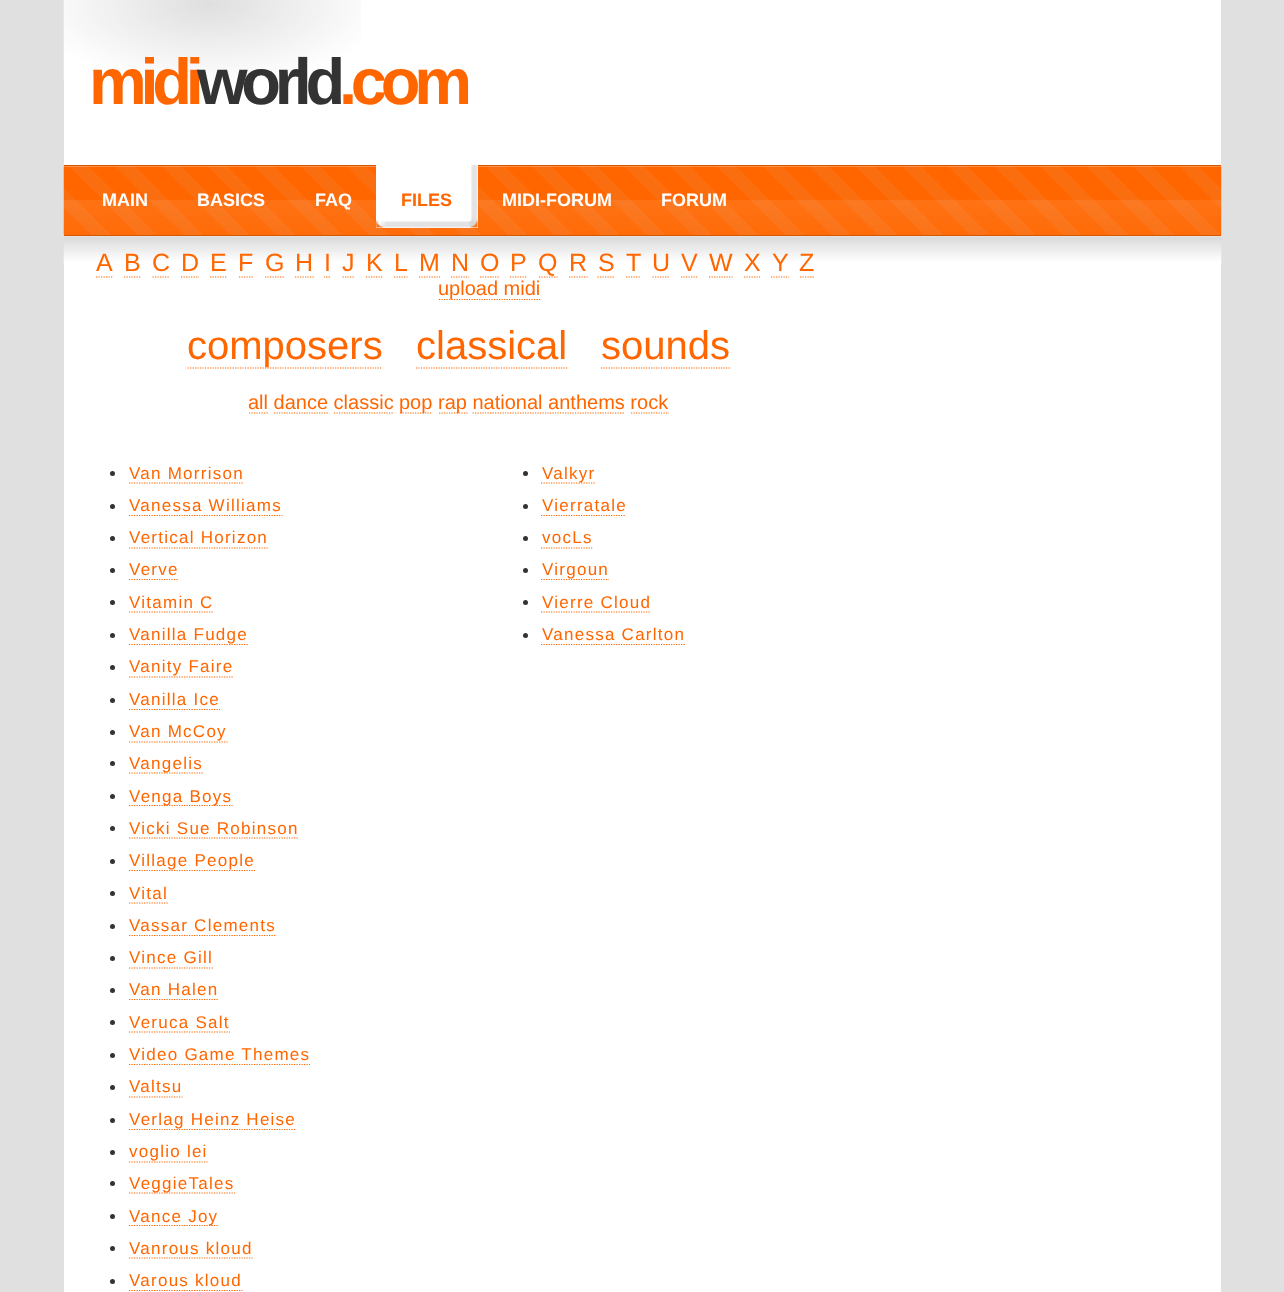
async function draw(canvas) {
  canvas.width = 1284
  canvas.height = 1292
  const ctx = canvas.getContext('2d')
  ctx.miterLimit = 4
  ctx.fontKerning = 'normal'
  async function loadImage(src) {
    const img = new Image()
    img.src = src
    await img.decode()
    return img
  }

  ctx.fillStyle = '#e0e0e0'
  ctx.fillRect(0, 0, 1284, 1292)
  ctx.fillStyle = '#fff'
  ctx.fillRect(64, 0, 1157, 1292)
  ctx.drawImage(await loadImage('image0.png'), 63, 0, 298, 80)
  ctx.letterSpacing = '-6.25px'
  ctx.font = 'bold 65px Liberation Sans'
  ctx.fillStyle = '#f60'
  ctx.fillText('midi', 89, 104)
  ctx.fillStyle = '#333'
  ctx.fillText('world', 197, 104)
  ctx.fillStyle = '#f60'
  ctx.fillText('.com', 339, 104)
  ctx.drawImage(await loadImage('image1.png'), 63, 166, 1159, 69)
  ctx.fillStyle = '#d65600'
  ctx.fillRect(64, 165, 1157, 1)
  ctx.letterSpacing = '0px'
  ctx.font = 'bold 18px Liberation Sans'
  ctx.fillStyle = '#fff'
  ctx.fillText('MAIN', 102, 206)
  ctx.fillText('BASICS', 197, 206)
  ctx.fillText('FAQ', 315, 206)
  ctx.fillRect(376, 165, 102, 63)
  ctx.drawImage(await loadImage('image2.png'), 376, 165, 102, 63)
  ctx.drawImage(await loadImage('image3.png'), 376, 220, 9, 8)
  ctx.fillStyle = '#f60'
  ctx.fillText('FILES', 401, 206)
  ctx.fillStyle = '#fff'
  ctx.fillText('MIDI-FORUM', 502, 206)
  ctx.fillText('FORUM', 661, 206)
  ctx.drawImage(await loadImage('image4.png'), 63, 236, 1159, 29)
  ctx.fillStyle = '#d65600'
  ctx.fillRect(64, 235, 1157, 1)
  ctx.font = '25px Liberation Sans'
  ctx.fillStyle = '#f60'
  ctx.fillText('A', 96, 271)
  ctx.beginPath()
  ctx.moveTo(96, 277)
  ctx.lineTo(112.5, 277)
  ctx.strokeStyle = '#f60'
  ctx.lineWidth = 1.2
  ctx.setLineDash([1.25, 1.25])
  ctx.stroke()
  ctx.fillText('B', 124, 271)
  ctx.beginPath()
  ctx.moveTo(124, 277)
  ctx.lineTo(141, 277)
  ctx.stroke()
  ctx.fillText('C', 152, 271)
  ctx.beginPath()
  ctx.moveTo(152.5, 277)
  ctx.lineTo(170, 277)
  ctx.stroke()
  ctx.fillText('D', 181, 271)
  ctx.beginPath()
  ctx.moveTo(181, 277)
  ctx.lineTo(199, 277)
  ctx.stroke()
  ctx.fillText('E', 210, 271)
  ctx.beginPath()
  ctx.moveTo(210, 277)
  ctx.lineTo(227.5, 277)
  ctx.stroke()
  ctx.fillText('F', 238, 271)
  ctx.beginPath()
  ctx.moveTo(239, 277)
  ctx.lineTo(254, 277)
  ctx.stroke()
  ctx.fillText('G', 265, 271)
  ctx.beginPath()
  ctx.moveTo(265, 277)
  ctx.lineTo(284, 277)
  ctx.stroke()
  ctx.fillText('H', 295, 271)
  ctx.beginPath()
  ctx.moveTo(295, 277)
  ctx.lineTo(314, 277)
  ctx.stroke()
  ctx.fillText('I', 324, 271)
  ctx.beginPath()
  ctx.moveTo(324, 277)
  ctx.lineTo(325, 277)
  ctx.moveTo(326, 277)
  ctx.lineTo(327.5, 277)
  ctx.moveTo(328.5, 277)
  ctx.lineTo(330, 277)
  ctx.setLineDash([])
  ctx.stroke()
  ctx.fillText('J', 342, 271)
  ctx.beginPath()
  ctx.moveTo(342.5, 277)
  ctx.lineTo(355, 277)
  ctx.setLineDash([1.25, 1.25])
  ctx.stroke()
  ctx.fillText('K', 366, 271)
  ctx.beginPath()
  ctx.moveTo(366, 277)
  ctx.lineTo(382.5, 277)
  ctx.stroke()
  ctx.fillText('L', 394, 271)
  ctx.beginPath()
  ctx.moveTo(394, 277)
  ctx.lineTo(407.5, 277)
  ctx.stroke()
  ctx.fillText('M', 419, 271)
  ctx.beginPath()
  ctx.moveTo(419, 277)
  ctx.lineTo(440, 277)
  ctx.stroke()
  ctx.fillText('N', 451, 271)
  ctx.beginPath()
  ctx.moveTo(451, 277)
  ctx.lineTo(469, 277)
  ctx.stroke()
  ctx.fillText('O', 480, 271)
  ctx.beginPath()
  ctx.moveTo(480, 277)
  ctx.lineTo(500, 277)
  ctx.stroke()
  ctx.fillText('P', 510, 271)
  ctx.beginPath()
  ctx.moveTo(510, 277)
  ctx.lineTo(527.5, 277)
  ctx.stroke()
  ctx.fillText('Q', 538, 271)
  ctx.beginPath()
  ctx.moveTo(539, 277)
  ctx.lineTo(557.5, 277)
  ctx.stroke()
  ctx.fillText('R', 569, 271)
  ctx.beginPath()
  ctx.moveTo(569, 277)
  ctx.lineTo(587.5, 277)
  ctx.stroke()
  ctx.fillText('S', 598, 271)
  ctx.beginPath()
  ctx.moveTo(597.5, 277)
  ctx.lineTo(615, 277)
  ctx.stroke()
  ctx.fillText('T', 626, 271)
  ctx.beginPath()
  ctx.moveTo(626, 277)
  ctx.lineTo(641, 277)
  ctx.stroke()
  ctx.fillText('U', 652, 271)
  ctx.beginPath()
  ctx.moveTo(652.5, 277)
  ctx.lineTo(670, 277)
  ctx.stroke()
  ctx.fillText('V', 681, 271)
  ctx.beginPath()
  ctx.moveTo(681, 277)
  ctx.lineTo(697.5, 277)
  ctx.stroke()
  ctx.fillText('W', 709, 271)
  ctx.beginPath()
  ctx.moveTo(709, 277)
  ctx.lineTo(732.5, 277)
  ctx.stroke()
  ctx.fillText('X', 744, 271)
  ctx.beginPath()
  ctx.moveTo(744, 277)
  ctx.lineTo(760, 277)
  ctx.stroke()
  ctx.fillText('Y', 772, 271)
  ctx.beginPath()
  ctx.moveTo(771, 277)
  ctx.lineTo(789, 277)
  ctx.stroke()
  ctx.fillText('Z', 799, 271)
  ctx.beginPath()
  ctx.moveTo(800, 277)
  ctx.lineTo(815, 277)
  ctx.stroke()
  ctx.beginPath()
  ctx.moveTo(439, 299.5)
  ctx.lineTo(541, 299.5)
  ctx.stroke()
  ctx.font = '20px Liberation Sans'
  ctx.fillText('upload midi', 438, 295)
  ctx.beginPath()
  ctx.moveTo(187.5, 368)
  ctx.lineTo(382.5, 368)
  ctx.stroke()
  ctx.font = '40px Liberation Sans'
  ctx.fillText('composers', 187, 359)
  ctx.fillText('classical', 416, 359)
  ctx.beginPath()
  ctx.moveTo(416, 368)
  ctx.lineTo(567.5, 368)
  ctx.stroke()
  ctx.fillText('sounds', 601, 359)
  ctx.beginPath()
  ctx.moveTo(601, 368)
  ctx.lineTo(730, 368)
  ctx.stroke()
  ctx.font = '20px Liberation Sans'
  ctx.fillText('all dance classic', 248, 409)
  ctx.beginPath()
  ctx.moveTo(249, 413)
  ctx.lineTo(269, 413)
  ctx.stroke()
  ctx.beginPath()
  ctx.moveTo(400, 413)
  ctx.lineTo(432.5, 413)
  ctx.stroke()
  ctx.fillText('pop', 399, 409)
  ctx.beginPath()
  ctx.moveTo(439, 413)
  ctx.lineTo(467.5, 413)
  ctx.stroke()
  ctx.fillText('rap national anthems rock', 438, 409)
  ctx.beginPath()
  ctx.moveTo(274, 413)
  ctx.lineTo(329, 413)
  ctx.stroke()
  ctx.beginPath()
  ctx.moveTo(334, 413)
  ctx.lineTo(394, 413)
  ctx.stroke()
  ctx.beginPath()
  ctx.moveTo(472.5, 413)
  ctx.lineTo(625, 413)
  ctx.stroke()
  ctx.beginPath()
  ctx.moveTo(631, 413)
  ctx.lineTo(669, 413)
  ctx.stroke()
  ctx.fillStyle = '#333'
  ctx.beginPath()
  ctx.arc(112.5, 473.5, 2.5, 0, 2 * Math.PI)
  ctx.fill()
  ctx.letterSpacing = '1.25px'
  ctx.font = '17px Liberation Sans'
  ctx.fillStyle = '#f60'
  ctx.fillText('Van Morrison', 129, 479)
  ctx.beginPath()
  ctx.moveTo(129, 483)
  ctx.lineTo(244, 483)
  ctx.stroke()
  ctx.fillStyle = '#333'
  ctx.beginPath()
  ctx.arc(112.5, 506.5, 2.5, 0, 2 * Math.PI)
  ctx.fill()
  ctx.fillStyle = '#f60'
  ctx.fillText('Vanessa Williams', 129, 511)
  ctx.beginPath()
  ctx.moveTo(129, 515.5)
  ctx.lineTo(282.5, 515.5)
  ctx.stroke()
  ctx.fillStyle = '#333'
  ctx.beginPath()
  ctx.arc(112.5, 538.5, 2.5, 0, 2 * Math.PI)
  ctx.fill()
  ctx.fillStyle = '#f60'
  ctx.fillText('Vertical Horizon', 129, 543)
  ctx.beginPath()
  ctx.moveTo(129, 548)
  ctx.lineTo(269, 548)
  ctx.stroke()
  ctx.fillStyle = '#333'
  ctx.beginPath()
  ctx.arc(112.5, 570.5, 2.5, 0, 2 * Math.PI)
  ctx.fill()
  ctx.fillStyle = '#f60'
  ctx.fillText('Verve', 129, 575)
  ctx.beginPath()
  ctx.moveTo(129, 579.5)
  ctx.lineTo(179, 579.5)
  ctx.stroke()
  ctx.fillStyle = '#333'
  ctx.beginPath()
  ctx.arc(112.5, 602.5, 2.5, 0, 2 * Math.PI)
  ctx.fill()
  ctx.fillStyle = '#f60'
  ctx.fillText('Vitamin C', 129, 608)
  ctx.beginPath()
  ctx.moveTo(129, 612)
  ctx.lineTo(214, 612)
  ctx.stroke()
  ctx.fillStyle = '#333'
  ctx.beginPath()
  ctx.arc(112.5, 635.5, 2.5, 0, 2 * Math.PI)
  ctx.fill()
  ctx.beginPath()
  ctx.moveTo(129, 644.5)
  ctx.lineTo(249, 644.5)
  ctx.stroke()
  ctx.fillStyle = '#f60'
  ctx.fillText('Vanilla Fudge', 129, 640)
  ctx.fillStyle = '#333'
  ctx.beginPath()
  ctx.arc(112.5, 667.5, 2.5, 0, 2 * Math.PI)
  ctx.fill()
  ctx.fillStyle = '#f60'
  ctx.fillText('Vanity Faire', 129, 672)
  ctx.beginPath()
  ctx.moveTo(129, 677)
  ctx.lineTo(234, 677)
  ctx.stroke()
  ctx.fillStyle = '#333'
  ctx.beginPath()
  ctx.arc(112.5, 700.5, 2.5, 0, 2 * Math.PI)
  ctx.fill()
  ctx.fillStyle = '#f60'
  ctx.fillText('Vanilla Ice', 129, 705)
  ctx.beginPath()
  ctx.moveTo(129, 709.5)
  ctx.lineTo(220, 709.5)
  ctx.stroke()
  ctx.fillStyle = '#333'
  ctx.beginPath()
  ctx.arc(112.5, 732.5, 2.5, 0, 2 * Math.PI)
  ctx.fill()
  ctx.fillStyle = '#f60'
  ctx.fillText('Van McCoy', 129, 737)
  ctx.beginPath()
  ctx.moveTo(129, 742)
  ctx.lineTo(227.5, 742)
  ctx.stroke()
  ctx.fillStyle = '#333'
  ctx.beginPath()
  ctx.arc(112.5, 763.5, 2.5, 0, 2 * Math.PI)
  ctx.fill()
  ctx.beginPath()
  ctx.moveTo(129, 773)
  ctx.lineTo(204, 773)
  ctx.stroke()
  ctx.fillStyle = '#f60'
  ctx.fillText('Vangelis', 129, 769)
  ctx.fillStyle = '#333'
  ctx.beginPath()
  ctx.arc(112.5, 796.5, 2.5, 0, 2 * Math.PI)
  ctx.fill()
  ctx.beginPath()
  ctx.moveTo(129, 805.5)
  ctx.lineTo(232.5, 805.5)
  ctx.stroke()
  ctx.fillStyle = '#f60'
  ctx.fillText('Venga Boys', 129, 802)
  ctx.fillStyle = '#333'
  ctx.beginPath()
  ctx.arc(112.5, 828.5, 2.5, 0, 2 * Math.PI)
  ctx.fill()
  ctx.fillStyle = '#f60'
  ctx.fillText('Vicki Sue Robinson', 129, 834)
  ctx.beginPath()
  ctx.moveTo(129, 838)
  ctx.lineTo(299, 838)
  ctx.stroke()
  ctx.fillStyle = '#333'
  ctx.beginPath()
  ctx.arc(112.5, 861.5, 2.5, 0, 2 * Math.PI)
  ctx.fill()
  ctx.beginPath()
  ctx.moveTo(129, 870.5)
  ctx.lineTo(255, 870.5)
  ctx.stroke()
  ctx.fillStyle = '#f60'
  ctx.fillText('Village People', 129, 866)
  ctx.fillStyle = '#333'
  ctx.beginPath()
  ctx.arc(112.5, 893.5, 2.5, 0, 2 * Math.PI)
  ctx.fill()
  ctx.fillStyle = '#f60'
  ctx.fillText('Vital', 129, 899)
  ctx.beginPath()
  ctx.moveTo(129, 903)
  ctx.lineTo(169, 903)
  ctx.stroke()
  ctx.fillStyle = '#333'
  ctx.beginPath()
  ctx.arc(112.5, 926.5, 2.5, 0, 2 * Math.PI)
  ctx.fill()
  ctx.fillStyle = '#f60'
  ctx.fillText('Vassar Clements', 129, 931)
  ctx.beginPath()
  ctx.moveTo(129, 935.5)
  ctx.lineTo(276, 935.5)
  ctx.stroke()
  ctx.fillStyle = '#333'
  ctx.beginPath()
  ctx.arc(112.5, 958.5, 2.5, 0, 2 * Math.PI)
  ctx.fill()
  ctx.fillStyle = '#f60'
  ctx.fillText('Vince Gill', 129, 963)
  ctx.beginPath()
  ctx.moveTo(129, 968)
  ctx.lineTo(214, 968)
  ctx.stroke()
  ctx.fillStyle = '#333'
  ctx.beginPath()
  ctx.arc(112.5, 990.5, 2.5, 0, 2 * Math.PI)
  ctx.fill()
  ctx.fillStyle = '#f60'
  ctx.fillText('Van Halen', 129, 995)
  ctx.beginPath()
  ctx.moveTo(129, 999.5)
  ctx.lineTo(219, 999.5)
  ctx.stroke()
  ctx.fillStyle = '#333'
  ctx.beginPath()
  ctx.arc(112.5, 1022.5, 2.5, 0, 2 * Math.PI)
  ctx.fill()
  ctx.fillStyle = '#f60'
  ctx.fillText('Veruca Salt', 129, 1028)
  ctx.beginPath()
  ctx.moveTo(129, 1032)
  ctx.lineTo(230, 1032)
  ctx.stroke()
  ctx.fillStyle = '#333'
  ctx.beginPath()
  ctx.arc(112.5, 1055.5, 2.5, 0, 2 * Math.PI)
  ctx.fill()
  ctx.fillStyle = '#f60'
  ctx.fillText('Video Game Themes', 129, 1060)
  ctx.beginPath()
  ctx.moveTo(129, 1064.5)
  ctx.lineTo(310, 1064.5)
  ctx.stroke()
  ctx.fillStyle = '#333'
  ctx.beginPath()
  ctx.arc(112.5, 1087.5, 2.5, 0, 2 * Math.PI)
  ctx.fill()
  ctx.fillStyle = '#f60'
  ctx.fillText('Valtsu', 129, 1092)
  ctx.beginPath()
  ctx.moveTo(129, 1097)
  ctx.lineTo(182.5, 1097)
  ctx.stroke()
  ctx.fillStyle = '#333'
  ctx.beginPath()
  ctx.arc(112.5, 1120.5, 2.5, 0, 2 * Math.PI)
  ctx.fill()
  ctx.beginPath()
  ctx.moveTo(129, 1129.5)
  ctx.lineTo(296, 1129.5)
  ctx.stroke()
  ctx.fillStyle = '#f60'
  ctx.fillText('Verlag Heinz Heise', 129, 1125)
  ctx.fillStyle = '#333'
  ctx.beginPath()
  ctx.arc(112.5, 1152.5, 2.5, 0, 2 * Math.PI)
  ctx.fill()
  ctx.fillStyle = '#f60'
  ctx.fillText('voglio lei', 129, 1157)
  ctx.beginPath()
  ctx.moveTo(129, 1162)
  ctx.lineTo(207.5, 1162)
  ctx.stroke()
  ctx.fillStyle = '#333'
  ctx.beginPath()
  ctx.arc(112.5, 1183.5, 2.5, 0, 2 * Math.PI)
  ctx.fill()
  ctx.beginPath()
  ctx.moveTo(129, 1193)
  ctx.lineTo(235, 1193)
  ctx.stroke()
  ctx.fillStyle = '#f60'
  ctx.fillText('VeggieTales', 129, 1189)
  ctx.fillStyle = '#333'
  ctx.beginPath()
  ctx.arc(112.5, 1216.5, 2.5, 0, 2 * Math.PI)
  ctx.fill()
  ctx.beginPath()
  ctx.moveTo(129, 1225.5)
  ctx.lineTo(219, 1225.5)
  ctx.stroke()
  ctx.fillStyle = '#f60'
  ctx.fillText('Vance Joy', 129, 1222)
  ctx.fillStyle = '#333'
  ctx.beginPath()
  ctx.arc(112.5, 1248.5, 2.5, 0, 2 * Math.PI)
  ctx.fill()
  ctx.fillStyle = '#f60'
  ctx.fillText('Vanrous kloud', 129, 1254)
  ctx.beginPath()
  ctx.moveTo(129, 1258)
  ctx.lineTo(252.5, 1258)
  ctx.stroke()
  ctx.fillStyle = '#333'
  ctx.beginPath()
  ctx.arc(112.5, 1281.5, 2.5, 0, 2 * Math.PI)
  ctx.fill()
  ctx.fillStyle = '#f60'
  ctx.fillText('Varous kloud', 129, 1286)
  ctx.beginPath()
  ctx.moveTo(129, 1290.5)
  ctx.lineTo(242.5, 1290.5)
  ctx.stroke()
  ctx.fillStyle = '#333'
  ctx.beginPath()
  ctx.arc(525.5, 473.5, 2.5, 0, 2 * Math.PI)
  ctx.fill()
  ctx.beginPath()
  ctx.moveTo(541, 483)
  ctx.lineTo(595, 483)
  ctx.stroke()
  ctx.fillStyle = '#f60'
  ctx.fillText('Valkyr', 542, 479)
  ctx.fillStyle = '#333'
  ctx.beginPath()
  ctx.arc(525.5, 506.5, 2.5, 0, 2 * Math.PI)
  ctx.fill()
  ctx.fillStyle = '#f60'
  ctx.fillText('Vierratale', 542, 511)
  ctx.beginPath()
  ctx.moveTo(541, 515.5)
  ctx.lineTo(626, 515.5)
  ctx.stroke()
  ctx.fillStyle = '#333'
  ctx.beginPath()
  ctx.arc(525.5, 538.5, 2.5, 0, 2 * Math.PI)
  ctx.fill()
  ctx.fillStyle = '#f60'
  ctx.fillText('vocLs', 542, 543)
  ctx.beginPath()
  ctx.moveTo(541, 548)
  ctx.lineTo(592.5, 548)
  ctx.stroke()
  ctx.fillStyle = '#333'
  ctx.beginPath()
  ctx.arc(525.5, 570.5, 2.5, 0, 2 * Math.PI)
  ctx.fill()
  ctx.beginPath()
  ctx.moveTo(541, 579.5)
  ctx.lineTo(609, 579.5)
  ctx.stroke()
  ctx.fillStyle = '#f60'
  ctx.fillText('Virgoun', 542, 575)
  ctx.fillStyle = '#333'
  ctx.beginPath()
  ctx.arc(525.5, 602.5, 2.5, 0, 2 * Math.PI)
  ctx.fill()
  ctx.fillStyle = '#f60'
  ctx.fillText('Vierre Cloud', 542, 608)
  ctx.beginPath()
  ctx.moveTo(541, 612)
  ctx.lineTo(651, 612)
  ctx.stroke()
  ctx.fillStyle = '#333'
  ctx.beginPath()
  ctx.arc(525.5, 635.5, 2.5, 0, 2 * Math.PI)
  ctx.fill()
  ctx.fillStyle = '#f60'
  ctx.fillText('Vanessa Carlton', 542, 640)
  ctx.beginPath()
  ctx.moveTo(541, 644.5)
  ctx.lineTo(685, 644.5)
  ctx.stroke()
}

draw(document.querySelector('canvas'))
